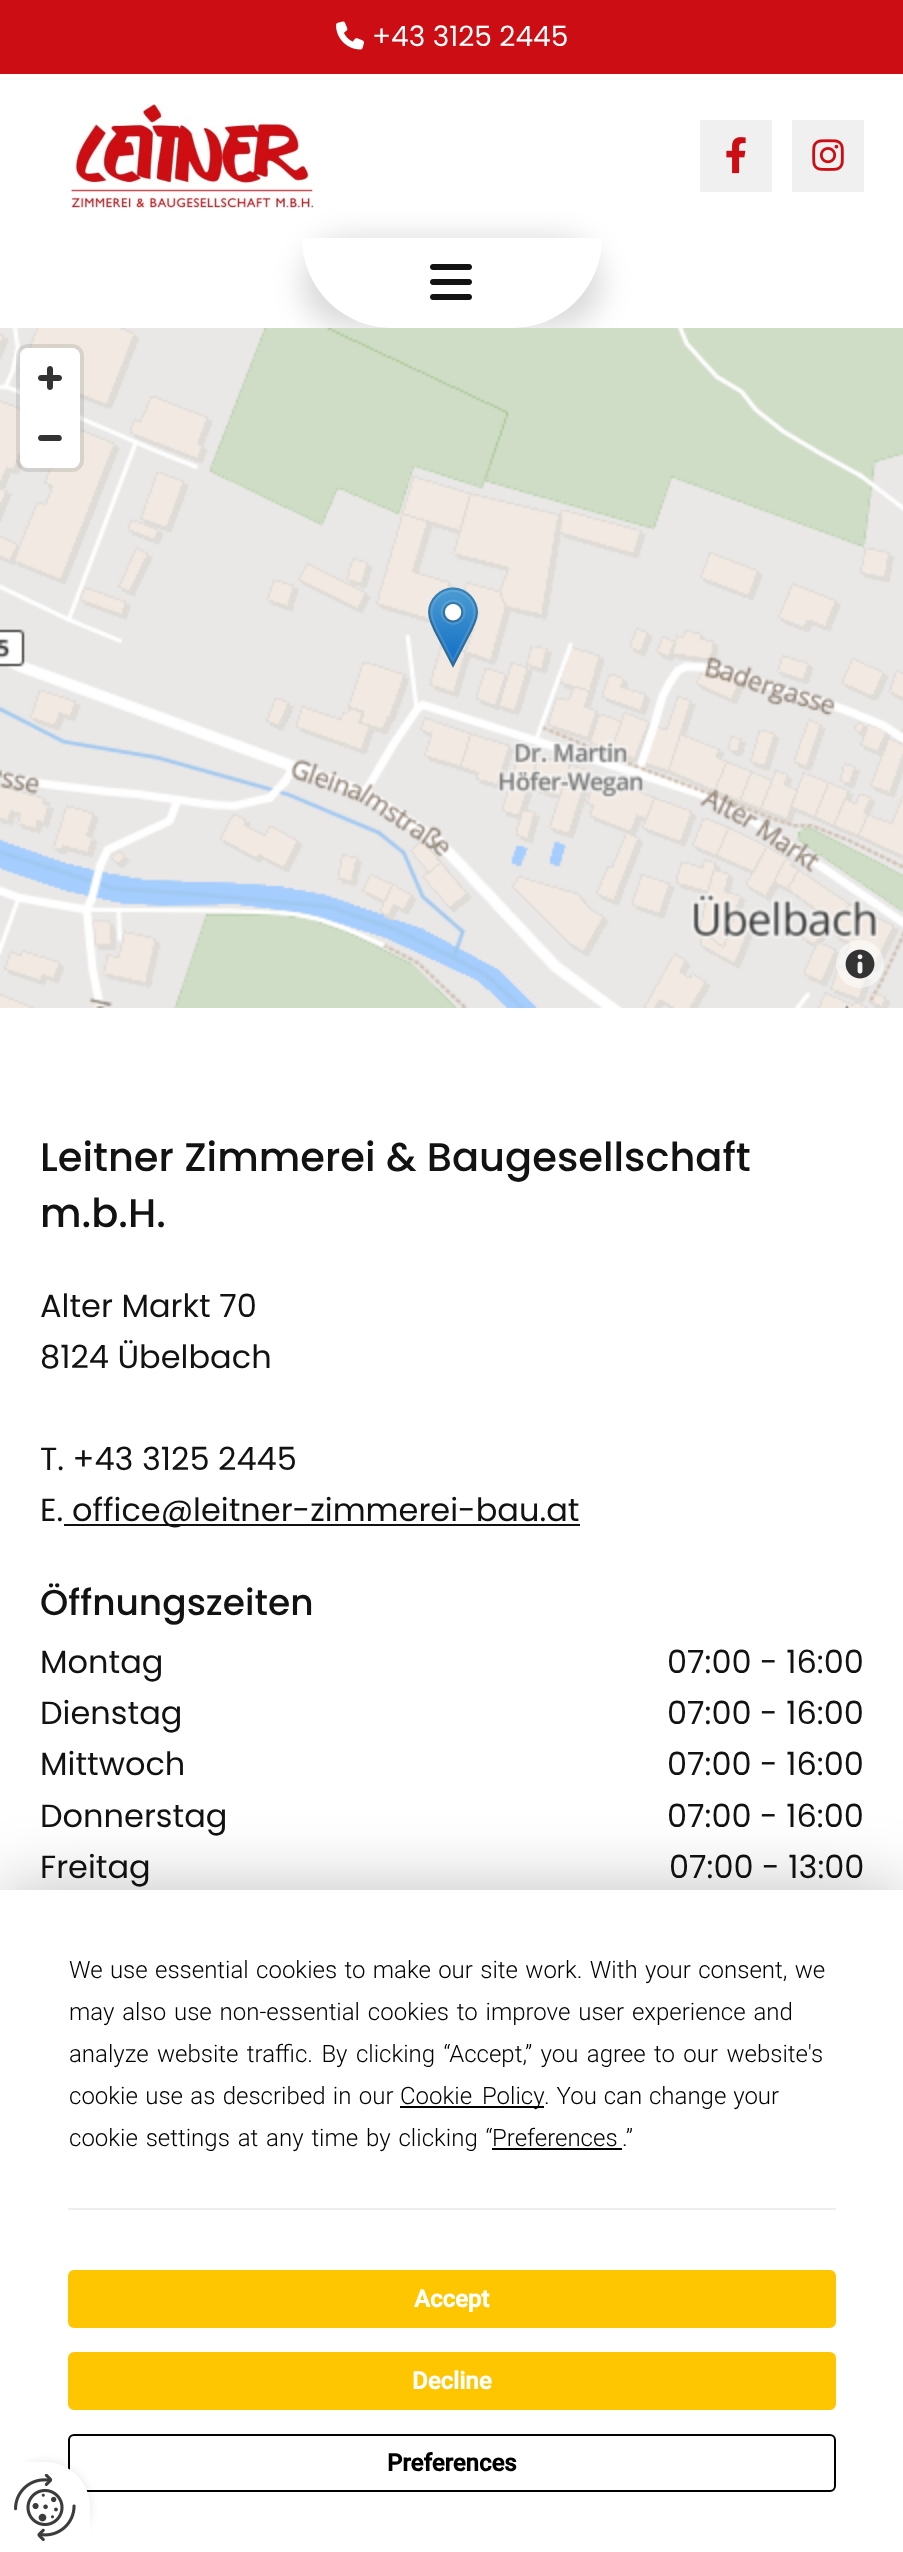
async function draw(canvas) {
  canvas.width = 903
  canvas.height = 2552
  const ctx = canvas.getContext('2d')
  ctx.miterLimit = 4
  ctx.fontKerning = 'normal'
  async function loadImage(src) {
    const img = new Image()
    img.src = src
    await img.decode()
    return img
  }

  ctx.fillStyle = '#fff'
  ctx.fillRect(0, 0, 903, 2552)
  ctx.fillStyle = '#cc0d14'
  ctx.fillRect(0, 0, 903, 74)
  ctx.drawImage(await loadImage('image0.png'), 336, 21, 28, 29)
  ctx.font = '28px Poppins'
  ctx.fillStyle = '#fff'
  ctx.fillText('+43 3125 2445', 372, 46)
  ctx.drawImage(await loadImage('image1.png'), 70, 104, 244, 104)
  ctx.fillStyle = '#f0f0f0'
  ctx.fillRect(700, 120, 72, 72)
  ctx.drawImage(await loadImage('image2.png'), 726, 137, 20, 37)
  ctx.fillRect(792, 120, 72, 72)
  ctx.drawImage(await loadImage('image3.png'), 812, 139, 32, 32)
  ctx.fillStyle = '#00000026'
  ctx.filter = 'blur(15px)'
  ctx.beginPath()
  ctx.roundRect(302, 238, 300, 90, 90)
  ctx.fill()
  ctx.filter = 'none'
  ctx.fillStyle = '#fff'
  ctx.beginPath()
  ctx.roundRect(302, 238, 300, 90, [0, 0, 90, 90])
  ctx.fill()
  ctx.drawImage(await loadImage('image4.png'), 430, 264, 42, 36)
  ctx.drawImage(await loadImage('image5.png'), 0, 328, 903, 680)
  ctx.drawImage(await loadImage('image6.png'), 428, 587, 50, 81)
  ctx.beginPath()
  ctx.roundRect(18, 346, 64, 124, 10)
  ctx.strokeStyle = '#0000001a'
  ctx.lineWidth = 4
  ctx.stroke()
  ctx.beginPath()
  ctx.roundRect(20, 348, 60, 120, 8)
  ctx.fill()
  ctx.drawImage(await loadImage('image7.png'), 38, 366, 24, 24)
  ctx.fillStyle = '#333'
  ctx.beginPath()
  ctx.moveTo(41, 435)
  ctx.bezierCurveTo(37, 435, 37, 441, 41, 441)
  ctx.lineTo(60, 441)
  ctx.bezierCurveTo(63, 439.5, 62, 435, 59, 435)
  ctx.closePath()
  ctx.fill()
  ctx.fillStyle = '#ffffff80'
  ctx.beginPath()
  ctx.arc(860, 964, 24, 0, 2 * Math.PI)
  ctx.fill()
  ctx.drawImage(await loadImage('image8.png'), 845, 949, 30, 30)
  ctx.font = '500 40px Poppins'
  ctx.fillStyle = '#121212'
  ctx.fillText('Leitner Zimmerei & Baugesellschaft', 40, 1171)
  ctx.fillText('m.b.H.', 40, 1227)
  ctx.font = '32px Poppins'
  ctx.fillText('Alter Markt 70', 40, 1317)
  ctx.fillText('8124 Übelbach', 40, 1368)
  ctx.fillText('T. +43 3125 2445', 40, 1470)
  ctx.fillText('E.', 40, 1521)
  ctx.fillRect(64, 1524, 516, 2)
  ctx.fillText('office@leitner-zimmerei-bau.at', 72, 1521)
  ctx.font = '500 36px Poppins'
  ctx.fillText('Öffnungszeiten', 40, 1615)
  ctx.font = '32px Poppins'
  ctx.fillText('Montag', 40, 1673)
  ctx.fillText('07:00 - 16:00', 667, 1673)
  ctx.fillText('Dienstag', 40, 1724)
  ctx.fillText('07:00 - 16:00', 667, 1724)
  ctx.fillText('Mittwoch', 40, 1775)
  ctx.fillText('07:00 - 16:00', 667, 1775)
  ctx.fillText('Donnerstag', 40, 1827)
  ctx.fillText('07:00 - 16:00', 667, 1827)
  ctx.fillText('Freitag', 40, 1878)
  ctx.fillText('07:00 - 13:00', 669, 1878)
  ctx.fillStyle = '#00000040'
  ctx.filter = 'blur(35px)'
  ctx.beginPath()
  ctx.rect(0, 1890, 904, 662)
  ctx.fill()
  ctx.filter = 'none'
  ctx.fillStyle = '#fff'
  ctx.fillRect(0, 1890, 903, 662)
  ctx.wordSpacing = '1.5px'
  ctx.font = '300 24px Roboto'
  ctx.fillStyle = '#000'
  ctx.fillText('We use essential cookies to make our site work. With your consent, we', 69, 1978)
  ctx.wordSpacing = '2px'
  ctx.fillText('may also use non-essential cookies to improve user experience and', 69, 2020)
  ctx.wordSpacing = '2.5px'
  ctx.fillText('analyze website traffic. By clicking “Accept,” you agree to our website\'s', 69, 2062)
  ctx.wordSpacing = '1.5px'
  ctx.fillText('cookie use as described in our', 69, 2104)
  ctx.fillRect(400, 2106, 144, 2)
  ctx.wordSpacing = '4px'
  ctx.fillText('Cookie Policy', 400, 2104)
  ctx.wordSpacing = '1px'
  ctx.fillText('. You can change your', 544, 2104)
  ctx.wordSpacing = '2px'
  ctx.fillText('cookie settings at any time by clicking “', 69, 2146)
  ctx.wordSpacing = '0px'
  ctx.fillText('Preferences', 492, 2146)
  ctx.fillRect(492, 2148, 130, 2)
  ctx.fillText('.”', 622, 2146)
  ctx.fillStyle = '#ededef'
  ctx.fillRect(68, 2208, 768, 2)
  ctx.fillStyle = '#fec600'
  ctx.beginPath()
  ctx.roundRect(69, 2271, 766, 56, 5)
  ctx.fill()
  ctx.strokeStyle = '#fec600'
  ctx.lineWidth = 2
  ctx.stroke()
  ctx.font = 'bold 24px Roboto'
  ctx.fillStyle = '#fff'
  ctx.fillText('Accept', 414, 2307)
  ctx.fillStyle = '#fec600'
  ctx.beginPath()
  ctx.roundRect(69, 2353, 766, 56, 5)
  ctx.fill()
  ctx.stroke()
  ctx.fillStyle = '#fff'
  ctx.fillText('Decline', 412, 2389)
  ctx.beginPath()
  ctx.roundRect(69, 2435, 766, 56, 5)
  ctx.strokeStyle = '#000'
  ctx.stroke()
  ctx.fillStyle = '#000'
  ctx.fillText('Preferences', 387, 2471)
  ctx.fillStyle = '#0000001a'
  ctx.filter = 'blur(5px)'
  ctx.beginPath()
  ctx.roundRect(0, 2462, 90, 90, 45)
  ctx.fill()
  ctx.filter = 'none'
  ctx.fillStyle = '#fff'
  ctx.beginPath()
  ctx.roundRect(0, 2462, 90, 90, [0, 45, 0, 0])
  ctx.fill()
  ctx.drawImage(await loadImage('image9.png'), 14, 2474, 62, 68)
}

draw(document.querySelector('canvas'))
